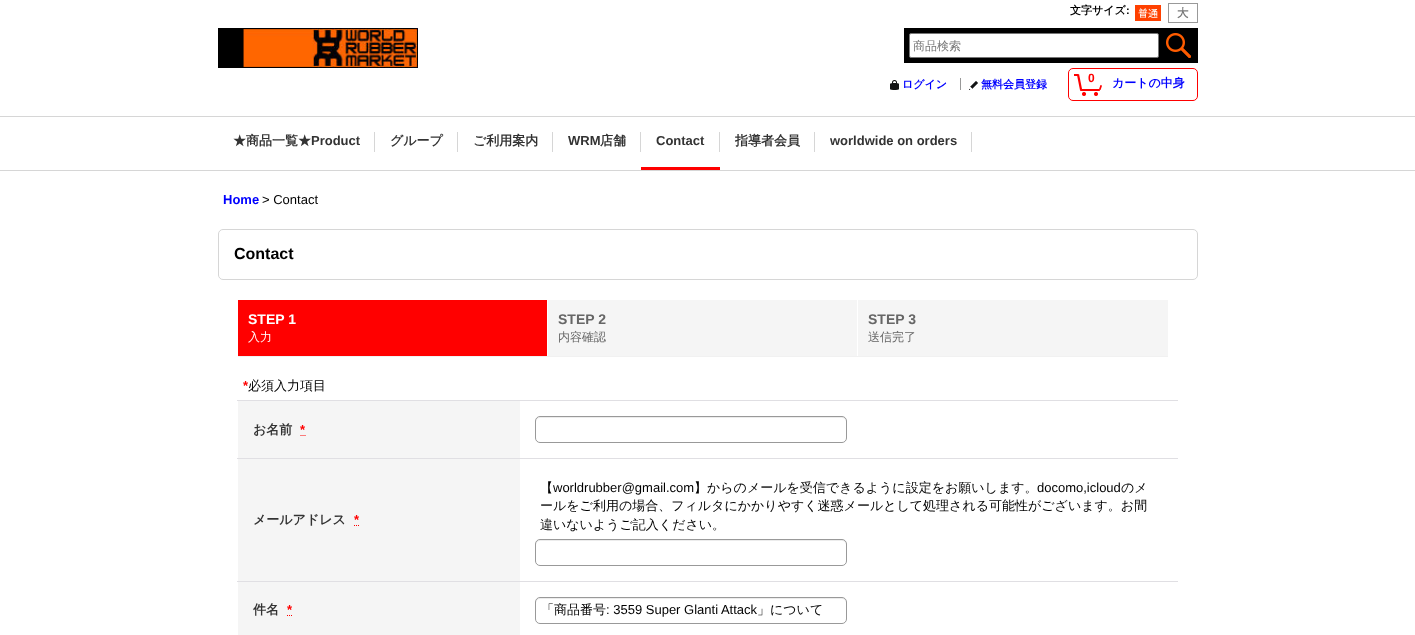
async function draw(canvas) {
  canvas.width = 1415
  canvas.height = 635
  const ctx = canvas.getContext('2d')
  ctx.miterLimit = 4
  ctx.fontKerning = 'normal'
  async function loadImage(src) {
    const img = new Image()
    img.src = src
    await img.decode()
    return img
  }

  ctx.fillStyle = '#fff'
  ctx.fillRect(0, 0, 1415, 635)
  ctx.fillStyle = '#d6d6d6'
  ctx.fillRect(0, 116, 1415, 1)
  ctx.font = 'bold 11px WenQuanYi Zen Hei'
  ctx.fillStyle = '#000'
  ctx.fillText('文字サイズ', 1070, 14)
  ctx.font = 'bold 11px Liberation Sans'
  ctx.fillText(':', 1126, 14)
  ctx.drawImage(await loadImage('image0.png'), 1135, 5, 26, 16)
  ctx.drawImage(await loadImage('image1.png'), 1168, 3, 30, 20)
  ctx.drawImage(await loadImage('image2.png'), 218, 28, 200, 40)
  ctx.fillRect(904, 28, 294, 35)
  ctx.fillStyle = '#fff'
  ctx.beginPath()
  ctx.roundRect(909.5, 33.5, 249, 24, 1.5)
  ctx.fill()
  ctx.strokeStyle = '#767676'
  ctx.stroke()
  ctx.font = '500 12px WenQuanYi Zen Hei'
  ctx.fillStyle = '#757575'
  ctx.fillText('商品検索', 913, 50)
  ctx.drawImage(await loadImage('image3.png'), 1166, 33, 25, 25)
  ctx.drawImage(await loadImage('image4.png'), 890, 80, 9, 10)
  ctx.font = 'bold 11px WenQuanYi Zen Hei'
  ctx.fillStyle = '#00f'
  ctx.fillText('ログイン', 902, 88)
  ctx.fillStyle = '#999'
  ctx.fillRect(960, 78, 1, 12)
  ctx.drawImage(await loadImage('image5.png'), 969, 81, 9, 9)
  ctx.fillStyle = '#00f'
  ctx.fillText('無料会員登録', 981, 88)
  ctx.beginPath()
  ctx.roundRect(1068.5, 68.5, 129, 32, 4.5)
  ctx.strokeStyle = '#f00'
  ctx.stroke()
  ctx.drawImage(await loadImage('image6.png'), 1074, 74, 28, 22)
  ctx.font = 'bold 12px Liberation Sans'
  ctx.fillStyle = '#f00'
  ctx.fillText('0', 1088, 82)
  ctx.font = 'bold 12px WenQuanYi Zen Hei'
  ctx.fillStyle = '#00f'
  ctx.fillText('カートの中身', 1112, 87)
  ctx.fillStyle = '#d6d6d6'
  ctx.fillRect(0, 170, 1415, 1)
  ctx.fillRect(374, 132, 1, 20)
  ctx.font = 'bold 13px WenQuanYi Zen Hei'
  ctx.fillStyle = '#333'
  ctx.fillText('★商品一覧★', 233, 145)
  ctx.font = 'bold 13px Liberation Sans'
  ctx.fillText('Product', 311, 145)
  ctx.fillStyle = '#d6d6d6'
  ctx.fillRect(457, 132, 1, 20)
  ctx.font = 'bold 13px WenQuanYi Zen Hei'
  ctx.fillStyle = '#333'
  ctx.fillText('グループ', 390, 145)
  ctx.fillStyle = '#d6d6d6'
  ctx.fillRect(552, 132, 1, 20)
  ctx.fillStyle = '#333'
  ctx.fillText('ご利用案内', 473, 145)
  ctx.fillStyle = '#d6d6d6'
  ctx.fillRect(640, 132, 1, 20)
  ctx.font = 'bold 13px Liberation Sans'
  ctx.fillStyle = '#333'
  ctx.fillText('WRM', 568, 145)
  ctx.font = 'bold 13px WenQuanYi Zen Hei'
  ctx.fillText('店舗', 600, 145)
  ctx.fillStyle = '#f00'
  ctx.fillRect(641, 167, 79, 3)
  ctx.fillStyle = '#d6d6d6'
  ctx.fillRect(719, 132, 1, 20)
  ctx.font = 'bold 13px Liberation Sans'
  ctx.fillStyle = '#333'
  ctx.fillText('Contact', 656, 145)
  ctx.fillStyle = '#d6d6d6'
  ctx.fillRect(814, 132, 1, 20)
  ctx.font = 'bold 13px WenQuanYi Zen Hei'
  ctx.fillStyle = '#333'
  ctx.fillText('指導者会員', 735, 145)
  ctx.fillStyle = '#d6d6d6'
  ctx.fillRect(971, 132, 1, 20)
  ctx.font = 'bold 13px Liberation Sans'
  ctx.fillStyle = '#333'
  ctx.fillText('worldwide on orders', 830, 145)
  ctx.fillStyle = '#00f'
  ctx.fillText('Home', 223, 204)
  ctx.font = '13px Liberation Sans'
  ctx.fillStyle = '#000'
  ctx.fillText('> Contact', 262, 204)
  ctx.beginPath()
  ctx.roundRect(218.5, 229.5, 979, 50, 4.5)
  ctx.strokeStyle = '#d6d6d6'
  ctx.stroke()
  ctx.font = 'bold 16px Liberation Sans'
  ctx.fillText('Contact', 234, 259)
  ctx.fillStyle = '#f00'
  ctx.fillRect(238, 300, 309, 56)
  ctx.fillStyle = '#f1f1f1'
  ctx.fillRect(238, 356, 930, 1)
  ctx.font = 'bold 14px Liberation Sans'
  ctx.fillStyle = '#fff'
  ctx.fillText('STEP 1', 248, 324)
  ctx.font = '500 12px WenQuanYi Zen Hei'
  ctx.fillText('入力', 248, 341)
  ctx.fillStyle = '#f5f5f5'
  ctx.fillRect(548, 300, 309, 56)
  ctx.font = 'bold 14px Liberation Sans'
  ctx.fillStyle = '#666'
  ctx.fillText('STEP 2', 558, 324)
  ctx.font = '500 12px WenQuanYi Zen Hei'
  ctx.fillText('内容確認', 558, 341)
  ctx.fillStyle = '#f5f5f5'
  ctx.fillRect(858, 300, 310, 56)
  ctx.font = 'bold 14px Liberation Sans'
  ctx.fillStyle = '#666'
  ctx.fillText('STEP 3', 868, 324)
  ctx.font = '500 12px WenQuanYi Zen Hei'
  ctx.fillText('送信完了', 868, 341)
  ctx.font = 'bold 13px Liberation Sans'
  ctx.fillStyle = '#f00'
  ctx.fillText('*', 243, 390)
  ctx.font = '500 13px WenQuanYi Zen Hei'
  ctx.fillStyle = '#000'
  ctx.fillText('必須入力項目', 248, 390)
  ctx.fillStyle = '#e0dfe3'
  ctx.fillRect(237, 400, 941, 1)
  ctx.fillRect(237, 458, 941, 1)
  ctx.fillStyle = '#ececec'
  ctx.beginPath()
  ctx.moveTo(540, 418)
  ctx.lineTo(842, 418)
  ctx.bezierCurveTo(844, 418, 846, 420, 846, 422)
  ctx.bezierCurveTo(846, 419, 845, 417, 842, 417)
  ctx.lineTo(540, 417)
  ctx.lineTo(537, 418)
  ctx.bezierCurveTo(536, 419, 536, 421, 536, 422)
  ctx.bezierCurveTo(536, 420, 538, 418, 540, 418)
  ctx.closePath()
  ctx.fill()
  ctx.beginPath()
  ctx.roundRect(535.5, 416.5, 311, 26, 4.5)
  ctx.strokeStyle = '#999'
  ctx.stroke()
  ctx.fillStyle = '#f5f5f5'
  ctx.fillRect(238, 401, 282, 57)
  ctx.font = 'bold 13px WenQuanYi Zen Hei'
  ctx.fillStyle = '#333'
  ctx.fillText('お名前', 253, 434)
  ctx.font = 'bold 13px Liberation Sans'
  ctx.fillStyle = '#f00'
  ctx.fillText('*', 300, 434)
  ctx.beginPath()
  ctx.moveTo(300.5, 435.5)
  ctx.lineTo(301.5, 435.5)
  ctx.moveTo(302.5, 435.5)
  ctx.lineTo(303.5, 435.5)
  ctx.moveTo(304.5, 435.5)
  ctx.lineTo(305.5, 435.5)
  ctx.strokeStyle = '#f00'
  ctx.stroke()
  ctx.fillStyle = '#f5f5f5'
  ctx.fillRect(238, 459, 282, 122)
  ctx.font = 'bold 13px WenQuanYi Zen Hei'
  ctx.fillStyle = '#333'
  ctx.fillText('メールアドレス', 253, 524)
  ctx.font = 'bold 13px Liberation Sans'
  ctx.fillStyle = '#f00'
  ctx.fillText('*', 354, 524)
  ctx.beginPath()
  ctx.moveTo(354, 525.5)
  ctx.lineTo(355, 525.5)
  ctx.moveTo(356, 525.5)
  ctx.lineTo(357, 525.5)
  ctx.moveTo(358, 525.5)
  ctx.lineTo(359, 525.5)
  ctx.stroke()
  ctx.fillStyle = '#e0dfe3'
  ctx.fillRect(237, 581, 941, 1)
  ctx.font = '500 13px WenQuanYi Zen Hei'
  ctx.fillStyle = '#000'
  ctx.fillText('【', 540, 492)
  ctx.font = '13px Liberation Sans'
  ctx.fillText('worldrubber@gmail.com', 553, 492)
  ctx.font = '500 13px WenQuanYi Zen Hei'
  ctx.fillText('】からのメールを受信できるように設定をお願いします。', 694, 492)
  ctx.font = '13px Liberation Sans'
  ctx.fillText('docomo,icloud', 1037, 492)
  ctx.font = '500 13px WenQuanYi Zen Hei'
  ctx.fillText('のメ', 1121, 492)
  ctx.fillText('ールをご利用の場合、フィルタにかかりやすく迷惑メールとして処理される可能性がございます。お間', 540, 510)
  ctx.fillText('違いないようご記入ください。', 540, 529)
  ctx.fillStyle = '#ececec'
  ctx.beginPath()
  ctx.moveTo(540, 541)
  ctx.lineTo(842, 541)
  ctx.bezierCurveTo(844, 541, 846, 543, 846, 545)
  ctx.bezierCurveTo(846, 542, 845, 540, 842, 540)
  ctx.lineTo(540, 540)
  ctx.lineTo(537, 541)
  ctx.bezierCurveTo(536, 542, 536, 544, 536, 545)
  ctx.bezierCurveTo(536, 543, 538, 541, 540, 541)
  ctx.closePath()
  ctx.fill()
  ctx.beginPath()
  ctx.roundRect(535.5, 539.5, 311, 26, 4.5)
  ctx.strokeStyle = '#999'
  ctx.stroke()
  ctx.fillStyle = '#f5f5f5'
  ctx.fillRect(238, 582, 282, 53)
  ctx.font = 'bold 13px WenQuanYi Zen Hei'
  ctx.fillStyle = '#333'
  ctx.fillText('件名', 253, 614)
  ctx.font = 'bold 13px Liberation Sans'
  ctx.fillStyle = '#f00'
  ctx.fillText('*', 287, 614)
  ctx.beginPath()
  ctx.moveTo(287, 615.5)
  ctx.lineTo(288, 615.5)
  ctx.moveTo(289, 615.5)
  ctx.lineTo(290, 615.5)
  ctx.moveTo(291, 615.5)
  ctx.lineTo(292, 615.5)
  ctx.strokeStyle = '#f00'
  ctx.stroke()
  ctx.fillStyle = '#ececec'
  ctx.beginPath()
  ctx.moveTo(540, 599)
  ctx.lineTo(842, 599)
  ctx.bezierCurveTo(844, 599, 846, 601, 846, 603)
  ctx.bezierCurveTo(846, 600, 845, 598, 842, 598)
  ctx.lineTo(540, 598)
  ctx.lineTo(537, 599)
  ctx.bezierCurveTo(536, 600, 536, 602, 536, 603)
  ctx.bezierCurveTo(536, 601, 538, 599, 540, 599)
  ctx.closePath()
  ctx.fill()
  ctx.beginPath()
  ctx.roundRect(535.5, 597.5, 311, 26, 4.5)
  ctx.strokeStyle = '#999'
  ctx.stroke()
  ctx.font = '500 13px WenQuanYi Zen Hei'
  ctx.fillStyle = '#000'
  ctx.fillText('「商品番号', 541, 614)
  ctx.font = '13px Liberation Sans'
  ctx.fillText(': 3559 Super Glanti Attack', 606, 614)
  ctx.font = '500 13px WenQuanYi Zen Hei'
  ctx.fillText('」について', 757, 614)
}

draw(document.querySelector('canvas'))
